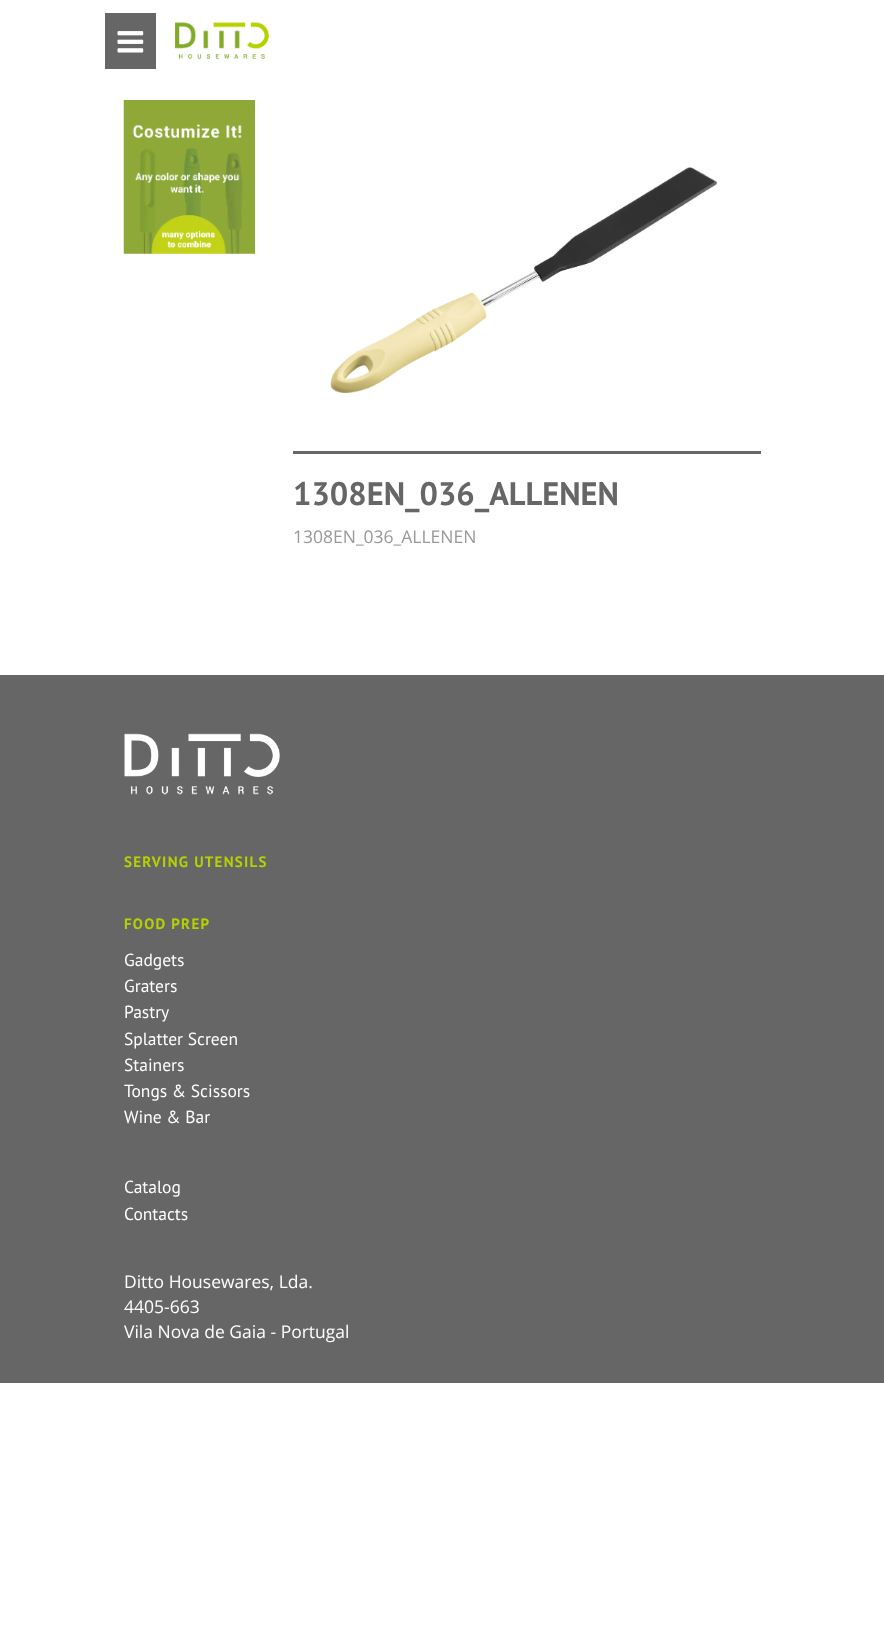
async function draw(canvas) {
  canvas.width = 884
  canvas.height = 1647
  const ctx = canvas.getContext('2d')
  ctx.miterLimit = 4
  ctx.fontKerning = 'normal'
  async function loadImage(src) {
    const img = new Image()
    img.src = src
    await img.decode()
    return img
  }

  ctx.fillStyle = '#fff'
  ctx.fillRect(0, 0, 884, 1647)
  ctx.fillStyle = '#666'
  ctx.fillRect(105, 13, 51, 56)
  ctx.drawImage(await loadImage('image0.png'), 117, 31, 27, 22)
  ctx.drawImage(await loadImage('image1.png'), 175, 22, 94, 37)
  ctx.drawImage(await loadImage('image2.png'), 123, 100, 132, 154)
  ctx.drawImage(await loadImage('image3.png'), 330, 167, 387, 227)
  ctx.fillRect(293, 451, 468, 3)
  ctx.font = 'bold 32.5px PT Sans'
  ctx.fillText('1308EN_036_ALLENEN', 293, 505)
  ctx.font = '17.5px Open Sans'
  ctx.fillStyle = '#999'
  ctx.fillText('1308EN_036_ALLENEN', 293, 543)
  ctx.fillStyle = '#666'
  ctx.fillRect(0, 675, 884, 708)
  ctx.drawImage(await loadImage('image4.png'), 124, 733, 156, 62)
  ctx.letterSpacing = '1.25px'
  ctx.font = 'bold 15px PT Sans'
  ctx.fillStyle = '#b5d101'
  ctx.fillText('SERVING UTENSILS', 124, 867)
  ctx.fillText('FOOD PREP', 124, 929)
  ctx.letterSpacing = '0px'
  ctx.font = '17.5px PT Sans'
  ctx.fillStyle = '#fff'
  ctx.fillText('Gadgets', 124, 966)
  ctx.fillText('Graters', 124, 992)
  ctx.fillText('Pastry', 124, 1018)
  ctx.fillText('Splatter Screen', 124, 1045)
  ctx.fillText('Stainers', 124, 1071)
  ctx.fillText('Tongs & Scissors', 124, 1097)
  ctx.fillText('Wine & Bar', 124, 1123)
  ctx.fillText('Catalog', 124, 1193)
  ctx.fillText('Contacts', 124, 1220)
  ctx.font = '17.5px Open Sans'
  ctx.fillText('Ditto Housewares, Lda.', 124, 1288)
  ctx.fillText('4405-663', 124, 1313)
  ctx.fillText('Vila Nova de Gaia - Portugal', 124, 1338)
}

draw(document.querySelector('canvas'))
